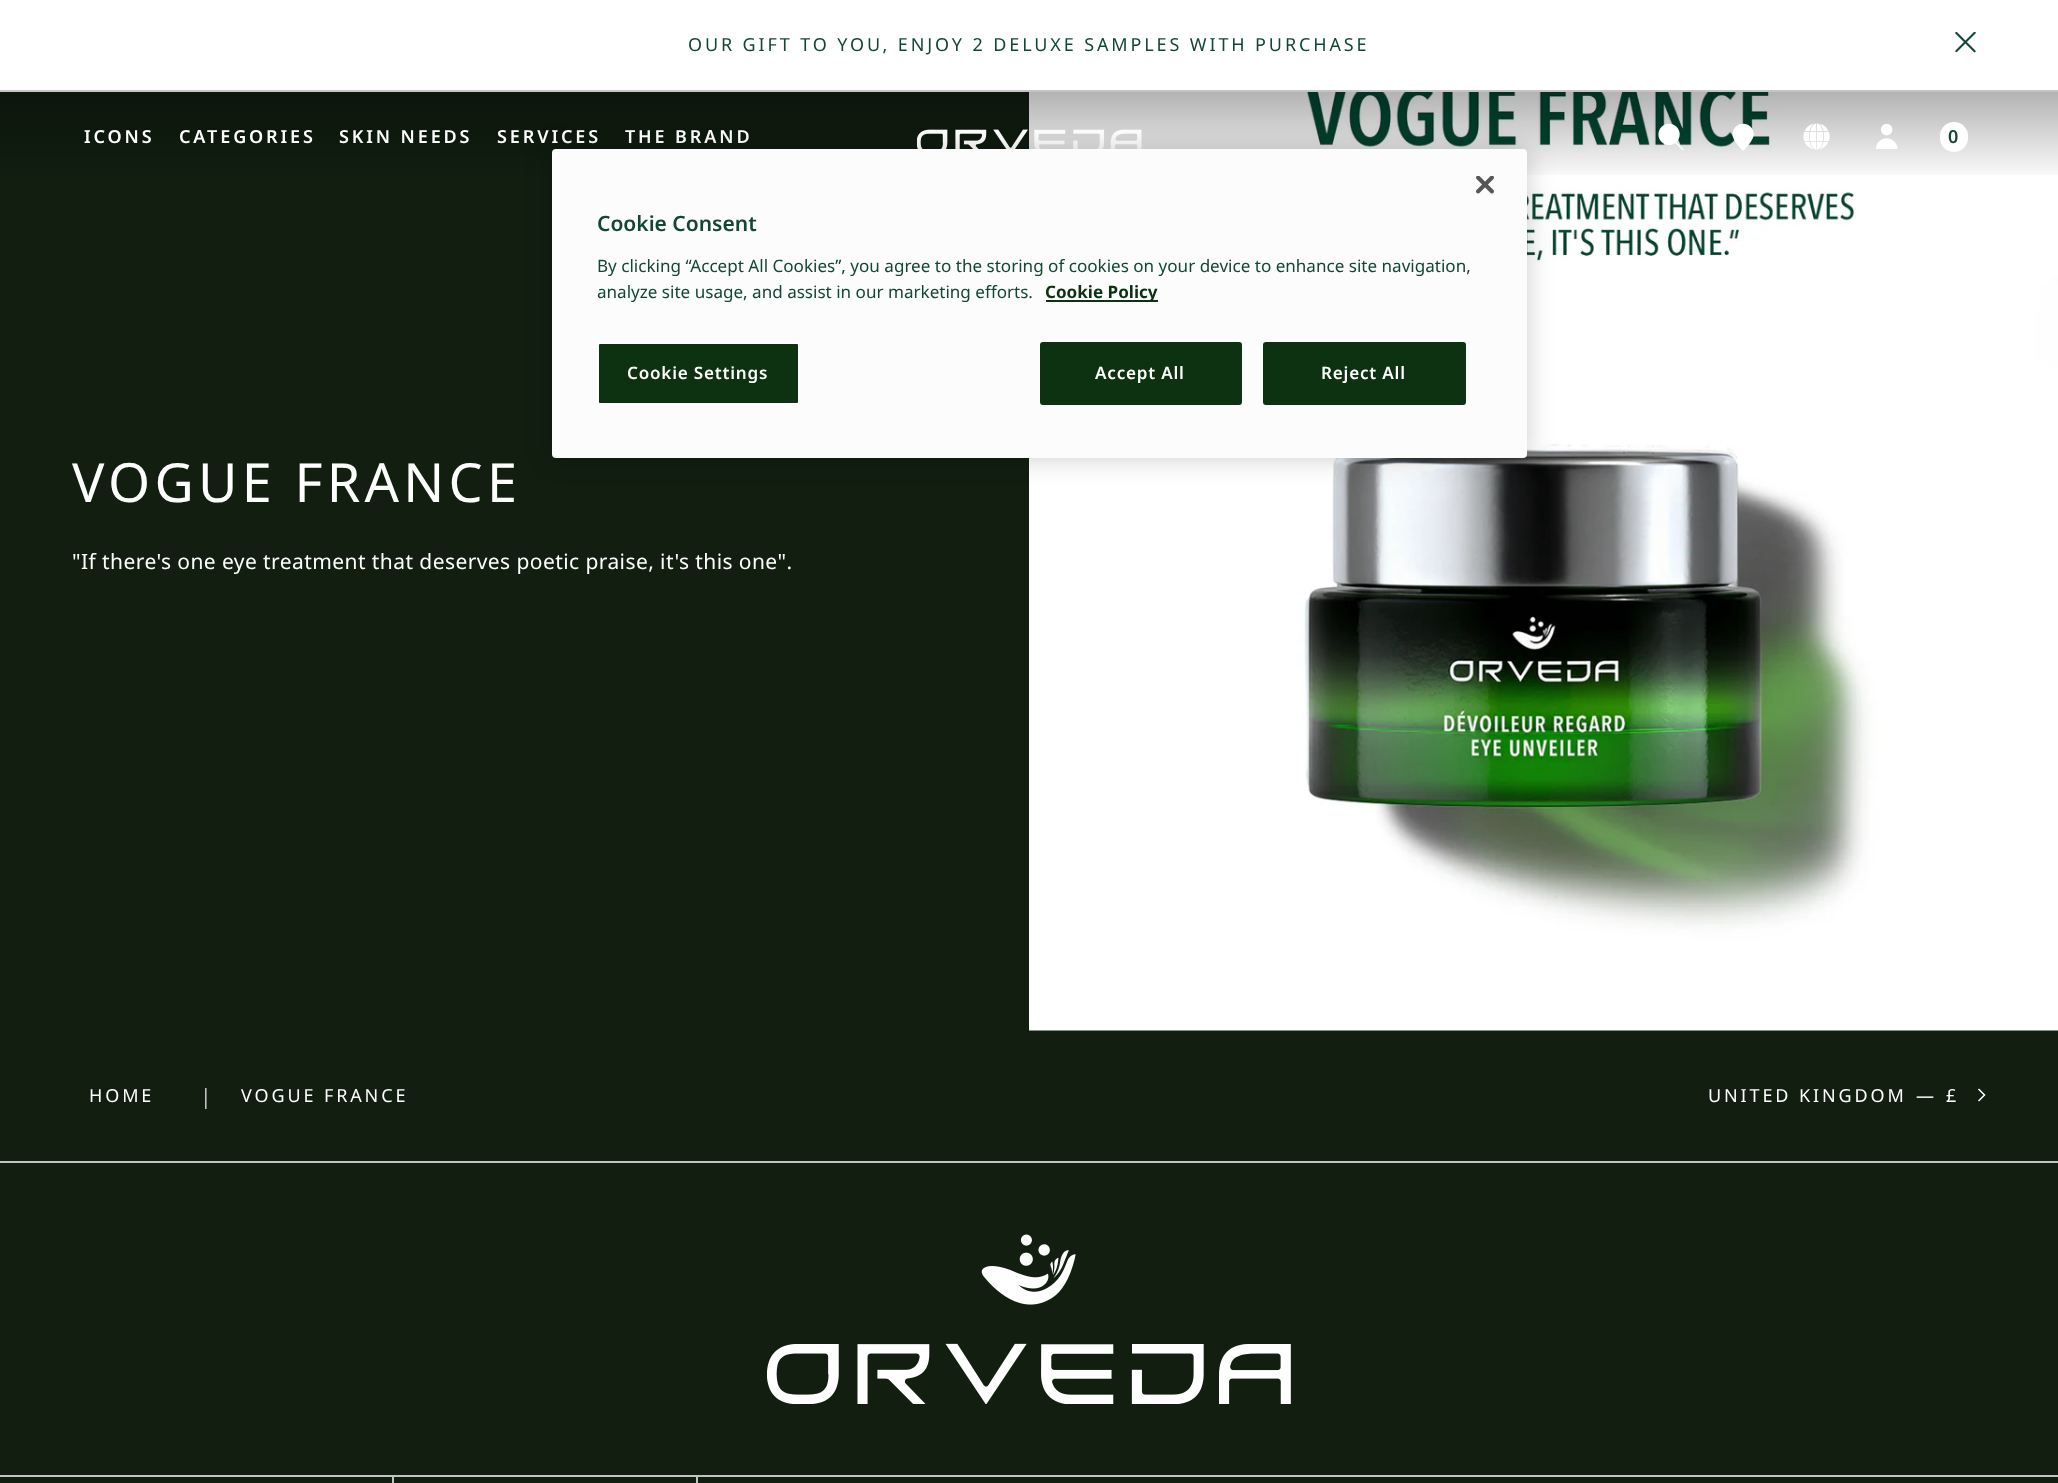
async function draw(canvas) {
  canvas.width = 2058
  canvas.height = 1483
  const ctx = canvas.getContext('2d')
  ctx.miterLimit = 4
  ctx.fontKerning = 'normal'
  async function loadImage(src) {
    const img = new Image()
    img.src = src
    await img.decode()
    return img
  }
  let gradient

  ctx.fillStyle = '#111e10'
  ctx.fillRect(0, 0, 2058, 1483)
  ctx.fillStyle = '#fff'
  ctx.fillRect(0, 0, 2058, 90)
  ctx.fillStyle = '#c4c4c4'
  ctx.fillRect(0, 90, 2058, 2)
  ctx.letterSpacing = '2.88px'
  ctx.font = '18px Noto Sans'
  ctx.fillStyle = '#124734'
  ctx.fillText('OUR GIFT TO YOU, ENJOY 2 DELUXE SAMPLES WITH PURCHASE', 688, 51)
  ctx.drawImage(await loadImage('image0.png'), 1955, 32, 21, 21)
  ctx.drawImage(await loadImage('image7.png'), 1029, 92, 1029, 939)
  gradient = ctx.createLinearGradient(1029, 91, 1029, 182)
  gradient.addColorStop(0, '#0000004d')
  gradient.addColorStop(1, '#00000000')
  ctx.fillStyle = gradient
  ctx.fillRect(0, 92, 2058, 83)
  ctx.font = '600 18px Noto Sans'
  ctx.fillStyle = '#fff'
  ctx.fillText('ICONS', 84, 143)
  ctx.fillText('CATEGORIES', 179, 143)
  ctx.fillText('SKIN NEEDS', 339, 143)
  ctx.fillText('SERVICES', 497, 143)
  ctx.fillText('THE BRAND', 625, 143)
  ctx.drawImage(await loadImage('image1.png'), 917, 129, 225, 20)
  ctx.drawImage(await loadImage('image2.png'), 1658, 123, 26, 28)
  ctx.drawImage(await loadImage('image3.png'), 1732, 123, 22, 28)
  ctx.drawImage(await loadImage('image4.png'), 1803, 123, 27, 27)
  ctx.drawImage(await loadImage('image5.png'), 1876, 123, 22, 26)
  ctx.beginPath()
  ctx.roundRect(1940, 122, 28, 30, 14)
  ctx.fill()
  ctx.letterSpacing = '0px'
  ctx.fillStyle = '#124734'
  ctx.fillText('0', 1948, 143)
  ctx.fillStyle = '#00000033'
  ctx.filter = 'blur(13.5px)'
  ctx.beginPath()
  ctx.roundRect(552, 149, 975, 309, 4)
  ctx.fill()
  ctx.filter = 'none'
  ctx.fillStyle = '#fdfcfc'
  ctx.beginPath()
  ctx.roundRect(552, 149, 975, 309, 4)
  ctx.fill()
  ctx.drawImage(await loadImage('image6.png'), 1476, 176, 18, 18)
  ctx.font = '600 21px Noto Sans'
  ctx.fillStyle = '#124734'
  ctx.fillText('Cookie Consent', 597, 231)
  ctx.font = '17.07px Noto Sans'
  ctx.fillText('By clicking “Accept All Cookies”, you agree to the storing of cookies on your device to enhance site navigation,', 597, 272)
  ctx.fillText('analyze site usage, and assist in our marketing efforts.', 597, 298)
  ctx.fillStyle = '#0c3211'
  ctx.fillRect(1046, 300, 112, 2)
  ctx.font = 'bold 17.07px Noto Sans'
  ctx.fillText('Cookie Policy', 1045, 298)
  ctx.beginPath()
  ctx.roundRect(598, 343, 201, 61, 2)
  ctx.fill()
  ctx.strokeStyle = '#fff'
  ctx.lineWidth = 2
  ctx.stroke()
  ctx.letterSpacing = '0.8px'
  ctx.font = '600 17.07px Noto Sans'
  ctx.fillStyle = '#fff'
  ctx.fillText('Cookie Settings', 627, 379)
  ctx.fillStyle = '#0c3211'
  ctx.beginPath()
  ctx.roundRect(1041, 343, 200, 61, 2)
  ctx.fill()
  ctx.strokeStyle = '#0c3211'
  ctx.stroke()
  ctx.fillStyle = '#fff'
  ctx.fillText('Accept All', 1095, 379)
  ctx.fillStyle = '#0c3211'
  ctx.beginPath()
  ctx.roundRect(1264, 343, 201, 61, 2)
  ctx.fill()
  ctx.stroke()
  ctx.fillStyle = '#fff'
  ctx.fillText('Reject All', 1321, 379)
  ctx.letterSpacing = '4.25px'
  ctx.font = '54px Noto Sans'
  ctx.fillText('VOGUE FRANCE', 72, 502)
  ctx.letterSpacing = '0.42px'
  ctx.font = '21px Noto Sans'
  ctx.fillText('"If there\'s one eye treatment that deserves poetic praise, it\'s this one".', 72, 569)
  ctx.fillStyle = '#c4c4c4'
  ctx.fillRect(0, 1161, 2058, 2)
  ctx.letterSpacing = '2.88px'
  ctx.font = '18px Noto Sans'
  ctx.fillStyle = '#fff'
  ctx.fillText('HOME', 89, 1102)
  ctx.letterSpacing = '0.42px'
  ctx.font = '21px Noto Sans'
  ctx.fillStyle = '#c4c4c4'
  ctx.fillText('|', 200, 1104)
  ctx.letterSpacing = '2.88px'
  ctx.font = '18px Noto Sans'
  ctx.fillStyle = '#fff'
  ctx.fillText('VOGUE FRANCE', 241, 1102)
  ctx.fillText('UNITED KINGDOM', 1708, 1102)
  ctx.fillText('—', 1916, 1102)
  ctx.fillText('£', 1946, 1102)
  ctx.beginPath()
  ctx.moveTo(1978.5, 1101)
  ctx.lineTo(1984.5, 1095)
  ctx.lineTo(1978.5, 1089)
  ctx.strokeStyle = '#fff'
  ctx.lineWidth = 1.5
  ctx.stroke()
  ctx.fillStyle = '#c4c4c4'
  ctx.fillRect(0, 1475, 2058, 2)
  ctx.drawImage(await loadImage('image8.png'), 767, 1234, 524, 170)
  ctx.fillRect(392, 1476, 2, 7)
  ctx.fillRect(696, 1476, 2, 7)
}

draw(document.querySelector('canvas'))
